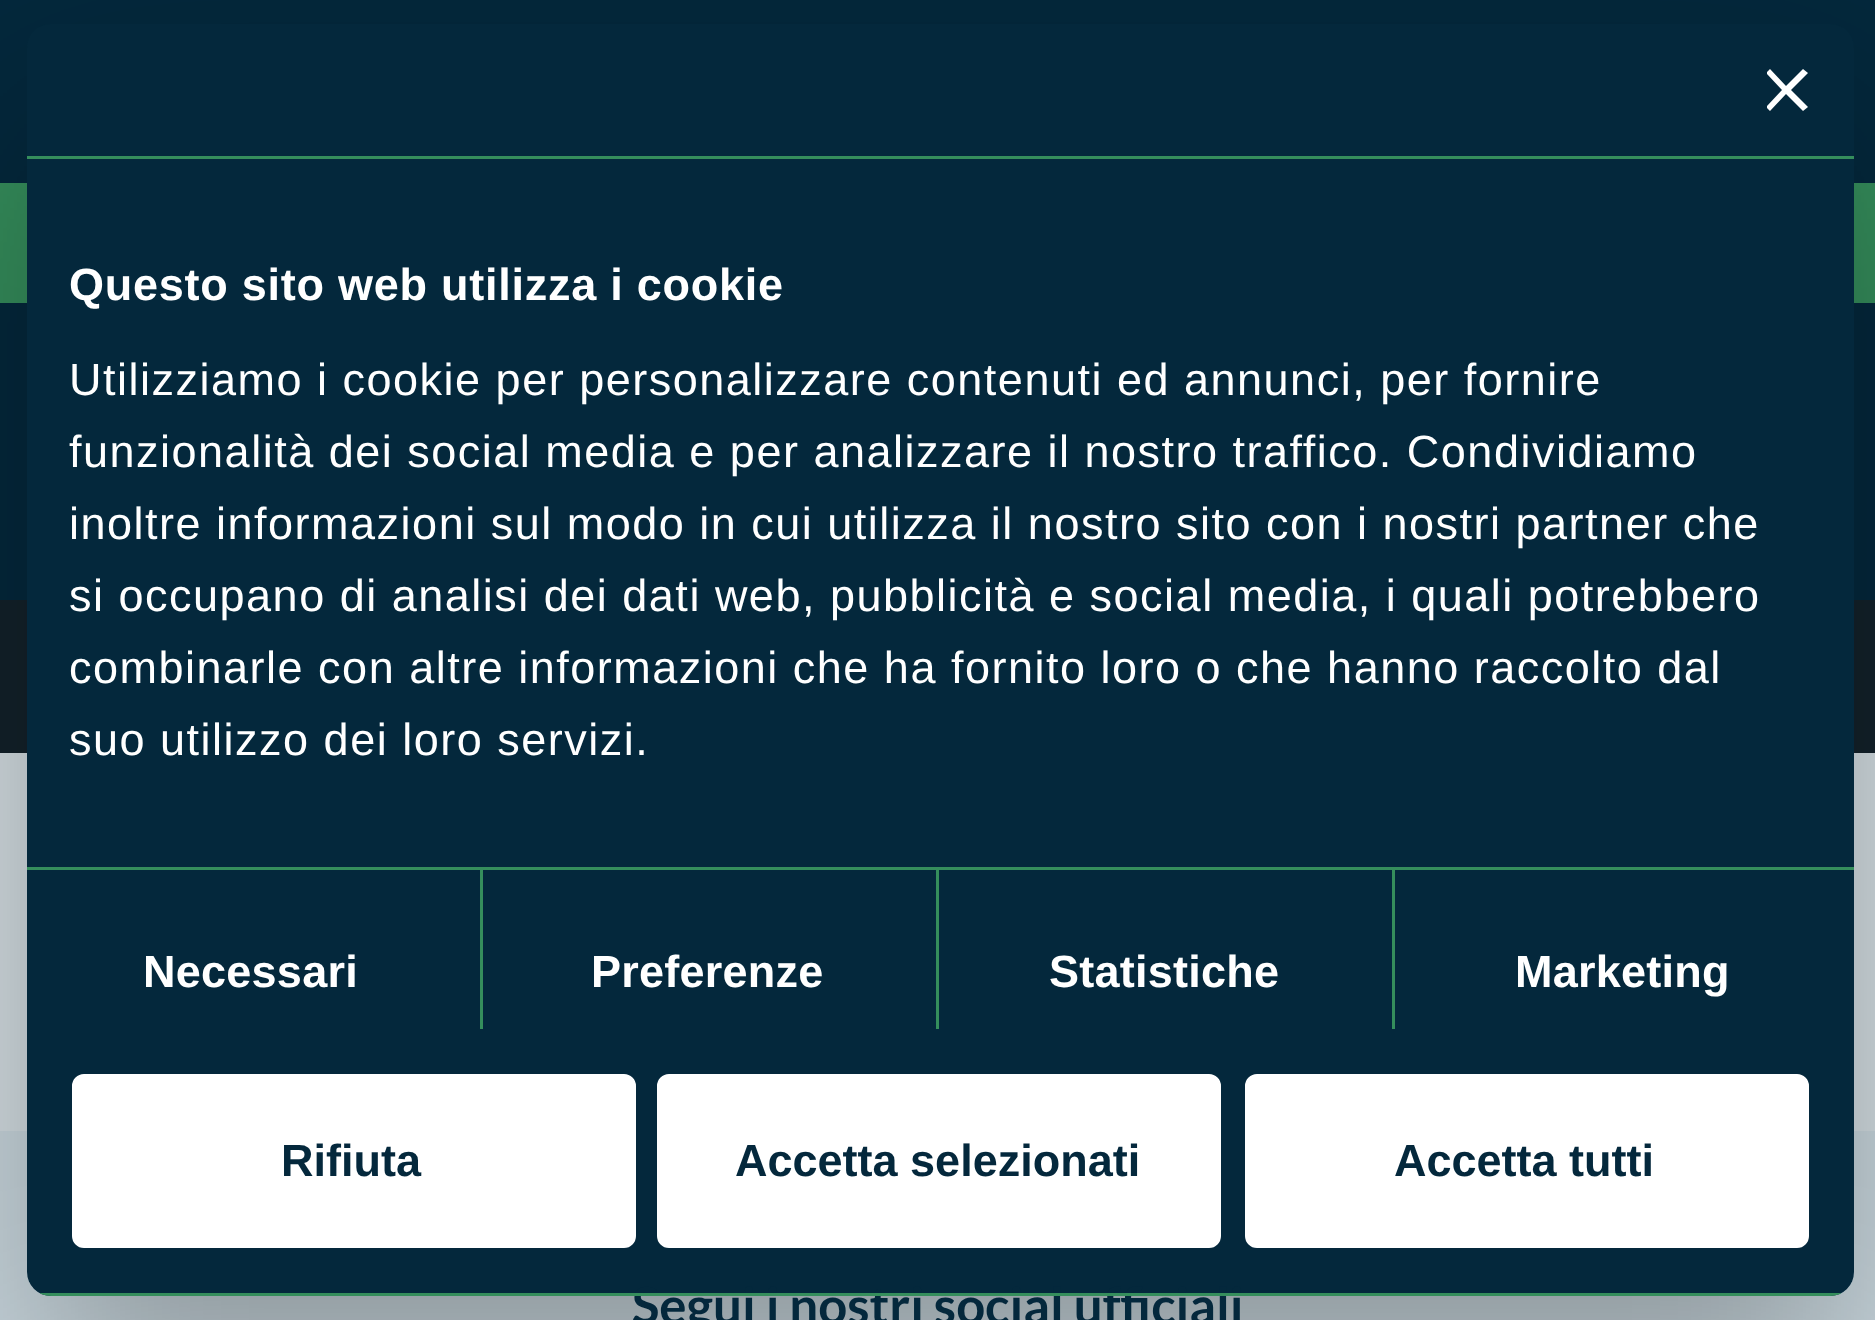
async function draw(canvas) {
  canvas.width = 1875
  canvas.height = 1320
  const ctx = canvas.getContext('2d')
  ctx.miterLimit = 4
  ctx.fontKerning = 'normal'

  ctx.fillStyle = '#04283c'
  ctx.fillRect(0, 0, 1875, 1320)
  ctx.fillStyle = '#358e5c'
  ctx.fillRect(0, 183, 1875, 120)
  ctx.fillStyle = '#13222b'
  ctx.fillRect(0, 600, 1875, 153)
  ctx.fillStyle = '#d6e0e5'
  ctx.fillRect(0, 753, 1875, 378)
  ctx.fillStyle = '#cbd9e0'
  ctx.fillRect(0, 1131, 1875, 189)
  ctx.save()
  ctx.beginPath()
  ctx.moveTo(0, 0)
  ctx.lineTo(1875, 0)
  ctx.lineTo(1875, 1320)
  ctx.lineTo(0, 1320)
  ctx.closePath()
  ctx.moveTo(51, 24)
  ctx.lineTo(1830, 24)
  ctx.bezierCurveTo(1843.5, 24, 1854, 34.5, 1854, 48)
  ctx.lineTo(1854, 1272)
  ctx.bezierCurveTo(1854, 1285.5, 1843.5, 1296, 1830, 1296)
  ctx.lineTo(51, 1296)
  ctx.bezierCurveTo(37.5, 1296, 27, 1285.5, 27, 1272)
  ctx.lineTo(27, 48)
  ctx.bezierCurveTo(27, 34.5, 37.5, 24, 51, 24)
  ctx.closePath()
  ctx.clip('evenodd')
  ctx.fillStyle = '#0000004d'
  ctx.filter = 'blur(102px)'
  ctx.beginPath()
  ctx.roundRect(27, 120, 1827, 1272, 24)
  ctx.fill()
  ctx.filter = 'none'
  ctx.restore()
  ctx.fillStyle = '#04283c'
  ctx.beginPath()
  ctx.roundRect(27, 24, 1827, 1272, 24)
  ctx.fill()
  ctx.fillStyle = '#358e5c'
  ctx.fillRect(27, 156, 1827, 3)
  ctx.save()
  ctx.beginPath()
  ctx.rect(1767, 69, 42, 42)
  ctx.clip()
  ctx.fillStyle = '#fff'
  ctx.beginPath()
  ctx.moveTo(1808, 73)
  ctx.lineTo(1803, 69)
  ctx.lineTo(1786, 86)
  ctx.lineTo(1770, 69)
  ctx.lineTo(1766, 73)
  ctx.lineTo(1782, 90)
  ctx.lineTo(1766, 107)
  ctx.lineTo(1770, 111)
  ctx.lineTo(1786, 94)
  ctx.lineTo(1803, 111)
  ctx.lineTo(1808, 107)
  ctx.lineTo(1791, 90)
  ctx.closePath()
  ctx.fill()
  ctx.restore()
  ctx.fillRect(27, 867, 1827, 3)
  ctx.letterSpacing = '0.75px'
  ctx.font = 'bold 45px Liberation Sans'
  ctx.fillStyle = '#fff'
  ctx.fillText('Questo sito web utilizza i cookie', 69, 300)
  ctx.letterSpacing = '1.5px'
  ctx.font = '45px Liberation Sans'
  ctx.fillText('Utilizziamo i cookie per personalizzare contenuti ed annunci, per fornire', 69, 395)
  ctx.fillText('funzionalità dei social media e per analizzare il nostro traffico. Condividiamo', 69, 467)
  ctx.fillText('inoltre informazioni sul modo in cui utilizza il nostro sito con i nostri partner che', 69, 539)
  ctx.fillText('si occupano di analisi dei dati web, pubblicità e social media, i quali potrebbero', 69, 611)
  ctx.fillText('combinarle con altre informazioni che ha fornito loro o che hanno raccolto dal', 69, 683)
  ctx.fillText('suo utilizzo dei loro servizi.', 69, 755)
  ctx.fillStyle = '#358e5c'
  ctx.fillRect(480, 870, 3, 159)
  ctx.letterSpacing = '0.25px'
  ctx.font = 'bold 45px Liberation Sans'
  ctx.fillStyle = '#fff'
  ctx.fillText('Necessari', 143, 987)
  ctx.fillStyle = '#358e5c'
  ctx.fillRect(936, 870, 3, 159)
  ctx.fillStyle = '#fff'
  ctx.fillText('Preferenze', 591, 987)
  ctx.fillStyle = '#358e5c'
  ctx.fillRect(1392, 870, 3, 159)
  ctx.fillStyle = '#fff'
  ctx.fillText('Statistiche', 1049, 987)
  ctx.fillText('Marketing', 1515, 987)
  ctx.letterSpacing = '0px'
  ctx.font = 'bold 51px Lato'
  ctx.fillStyle = '#04283c'
  ctx.fillText('Segui i nostri social ufficiali', 632, 1324)
  ctx.save()
  ctx.beginPath()
  ctx.roundRect(27, 24, 1827, 1272, 24)
  ctx.clip()
  ctx.fillStyle = '#358e5c'
  ctx.fillRect(39, 1293, 1803, 3)
  ctx.restore()
  ctx.fillStyle = '#fff'
  ctx.beginPath()
  ctx.roundRect(75, 1077, 558, 168, 9)
  ctx.fill()
  ctx.strokeStyle = '#fff'
  ctx.lineWidth = 6
  ctx.stroke()
  ctx.font = 'bold 45px Liberation Sans'
  ctx.fillStyle = '#04283c'
  ctx.fillText('Rifiuta', 281, 1176)
  ctx.fillStyle = '#fff'
  ctx.beginPath()
  ctx.roundRect(660, 1077, 558, 168, 9)
  ctx.fill()
  ctx.stroke()
  ctx.fillStyle = '#04283c'
  ctx.fillText('Accetta selezionati', 735, 1176)
  ctx.fillStyle = '#fff'
  ctx.beginPath()
  ctx.roundRect(1248, 1077, 558, 168, 9)
  ctx.fill()
  ctx.stroke()
  ctx.fillStyle = '#04283c'
  ctx.fillText('Accetta tutti', 1394, 1176)
}

draw(document.querySelector('canvas'))
